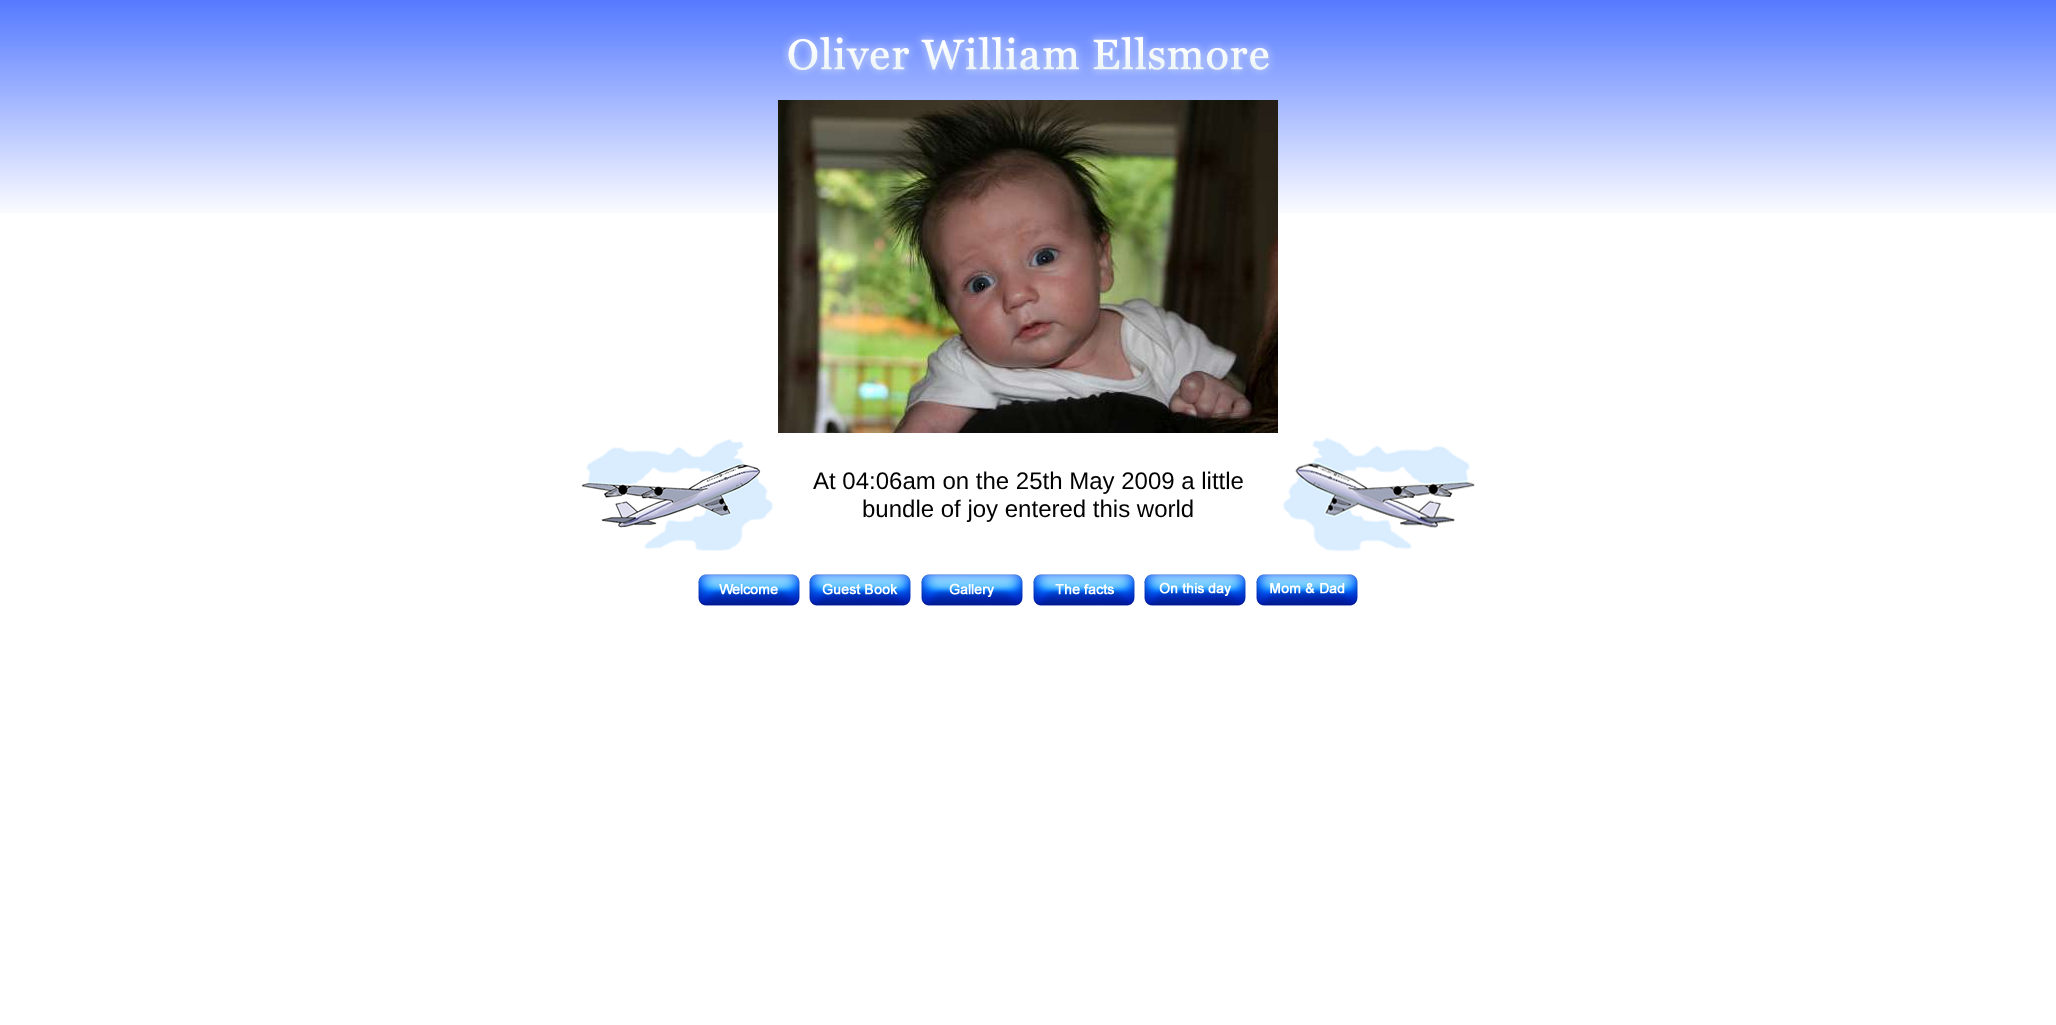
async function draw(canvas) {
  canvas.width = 2056
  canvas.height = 1025
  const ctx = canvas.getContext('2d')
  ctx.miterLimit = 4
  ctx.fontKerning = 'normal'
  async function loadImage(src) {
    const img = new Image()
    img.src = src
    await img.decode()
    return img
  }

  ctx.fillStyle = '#fff'
  ctx.fillRect(0, 0, 2056, 1025)
  ctx.drawImage(await loadImage('image0.png'), 0, 0, 2056, 213)
  ctx.drawImage(await loadImage('image1.png'), 782, 30, 493, 46)
  ctx.drawImage(await loadImage('image2.png'), 778, 100, 500, 333)
  ctx.drawImage(await loadImage('image3.png'), 581, 439, 192, 112)
  ctx.font = '24px Liberation Sans'
  ctx.fillStyle = '#000'
  ctx.fillText('At 04:06am on the 25th May 2009 a little', 813, 489)
  ctx.fillText('bundle of joy entered this world', 862, 517)
  ctx.drawImage(await loadImage('image4.png'), 1283, 437, 192, 115)
  ctx.drawImage(await loadImage('image5.png'), 698, 574, 102, 32)
  ctx.drawImage(await loadImage('image6.png'), 809, 574, 102, 32)
  ctx.drawImage(await loadImage('image7.png'), 921, 574, 102, 32)
  ctx.drawImage(await loadImage('image8.png'), 1033, 574, 102, 32)
  ctx.drawImage(await loadImage('image9.png'), 1144, 574, 102, 32)
  ctx.drawImage(await loadImage('image10.png'), 1256, 574, 102, 32)
}

draw(document.querySelector('canvas'))
